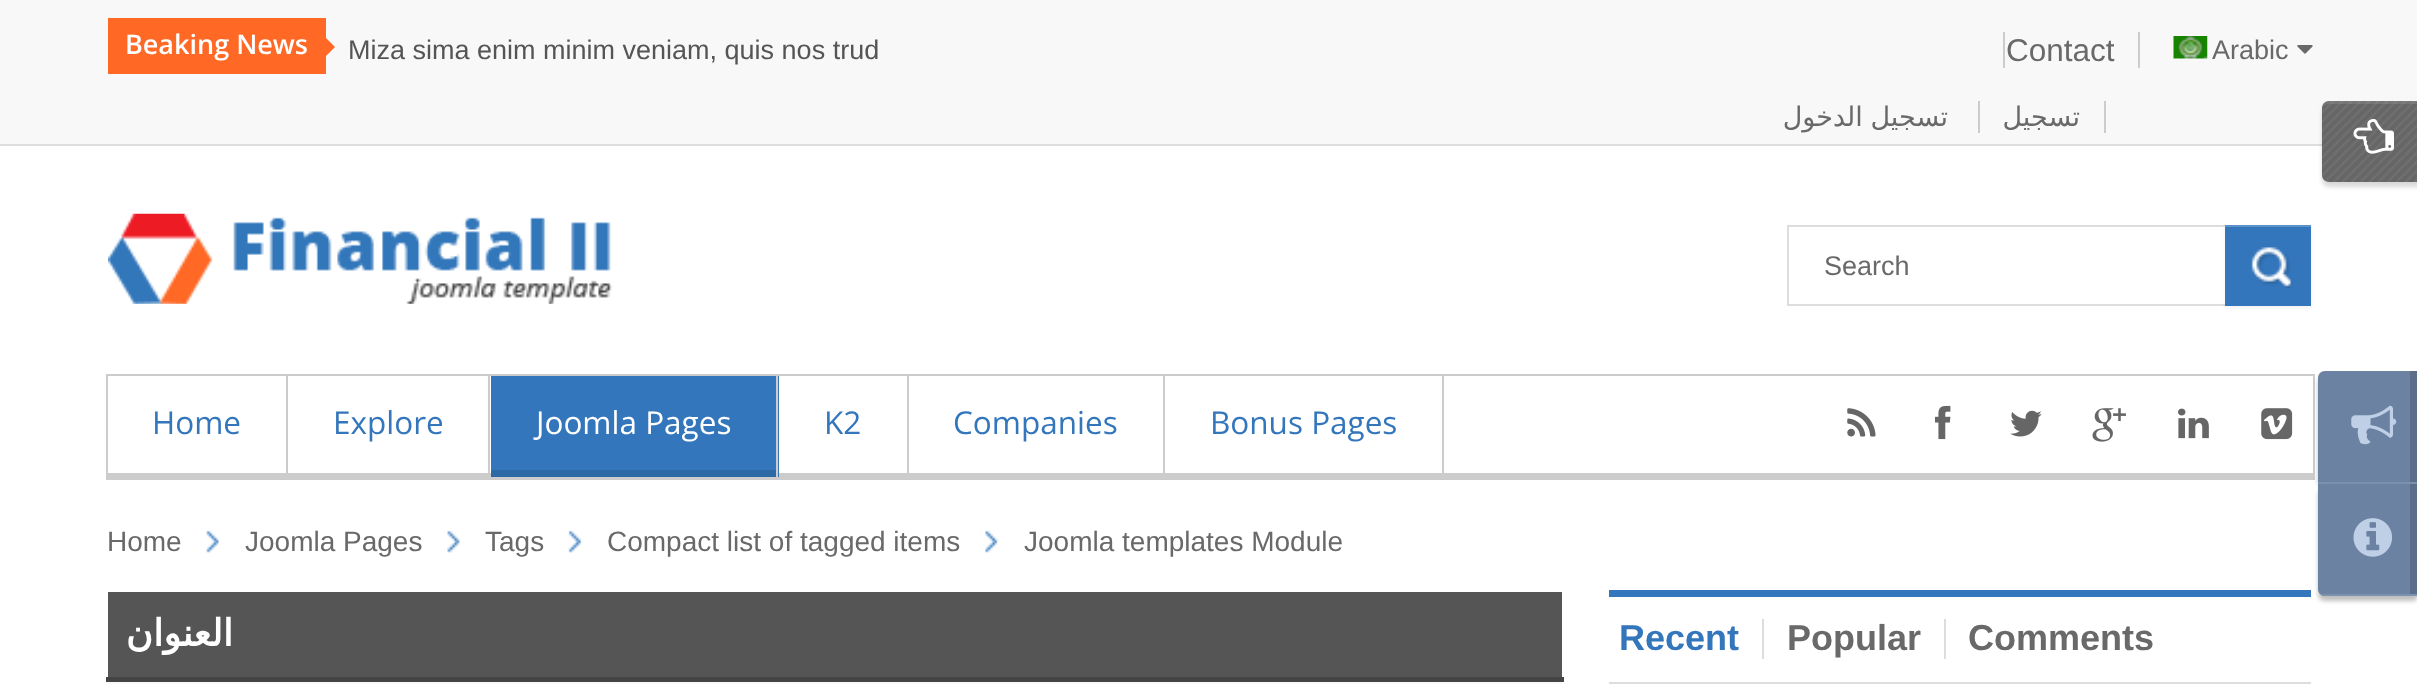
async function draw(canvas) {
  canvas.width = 2417
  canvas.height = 684
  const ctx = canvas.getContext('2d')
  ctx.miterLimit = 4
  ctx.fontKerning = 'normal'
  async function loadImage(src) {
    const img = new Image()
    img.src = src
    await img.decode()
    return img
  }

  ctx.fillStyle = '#fff'
  ctx.fillRect(0, 0, 2417, 684)
  ctx.fillStyle = '#f8f8f8'
  ctx.fillRect(0, 0, 2417, 144)
  ctx.fillStyle = '#ddd'
  ctx.fillRect(0, 144, 2322, 2)
  ctx.fillStyle = '#ff6825'
  ctx.fillRect(108, 18, 218, 56)
  ctx.font = '600 27px Open Sans'
  ctx.fillStyle = '#fff'
  ctx.fillText('Beaking News', 125, 54)
  ctx.fillStyle = '#ff6825'
  ctx.beginPath()
  ctx.moveTo(326, 56)
  ctx.lineTo(326, 38)
  ctx.lineTo(335, 47)
  ctx.closePath()
  ctx.fill()
  ctx.font = '27px Liberation Sans'
  ctx.fillStyle = '#555'
  ctx.fillText('Miza sima enim minim veniam, quis nos trud', 348, 59)
  ctx.font = '31.5px Liberation Sans'
  ctx.fillStyle = '#696969'
  ctx.fillText('Contact', 2006, 61)
  ctx.fillStyle = '#ccc'
  ctx.fillRect(2138, 32, 2, 36)
  ctx.fillRect(2003, 32, 2, 36)
  ctx.drawImage(await loadImage('image0.png'), 2173, 36, 35, 23)
  ctx.font = '27px Liberation Sans'
  ctx.fillStyle = '#696969'
  ctx.fillText('Arabic', 2212, 59)
  ctx.drawImage(await loadImage('image1.png'), 2297, 45, 16, 9)
  ctx.wordSpacing = '-1px'
  ctx.direction = 'rtl'
  ctx.font = '27px DejaVu Sans'
  ctx.fillText('تسجيل الدخول', 1948, 126)
  ctx.fillStyle = '#ccc'
  ctx.fillRect(1978, 101, 2, 32)
  ctx.wordSpacing = '0px'
  ctx.fillStyle = '#696969'
  ctx.fillText('تسجيل', 2080, 126)
  ctx.fillStyle = '#ccc'
  ctx.fillRect(2104, 101, 2, 32)
  ctx.fillStyle = '#00000026'
  ctx.filter = 'blur(2px)'
  ctx.beginPath()
  ctx.roundRect(2322, 106, 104, 81, 7)
  ctx.fill()
  ctx.filter = 'none'
  ctx.fillStyle = '#666'
  ctx.beginPath()
  ctx.moveTo(2329, 101)
  ctx.lineTo(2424, 101)
  ctx.lineTo(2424, 182)
  ctx.lineTo(2329, 182)
  ctx.bezierCurveTo(2325, 182, 2322, 179, 2322, 175)
  ctx.lineTo(2322, 108)
  ctx.bezierCurveTo(2322, 104, 2325, 101, 2329, 101)
  ctx.closePath()
  ctx.fill()
  ctx.drawImage(await loadImage('image2.png'), 2322, 101, 95, 81)
  ctx.fillStyle = '#ffffff1a'
  ctx.beginPath()
  ctx.moveTo(2329, 104)
  ctx.lineTo(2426, 104)
  ctx.lineTo(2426, 101)
  ctx.lineTo(2329, 101)
  ctx.bezierCurveTo(2325, 101, 2322, 104, 2322, 108)
  ctx.lineTo(2322, 110)
  ctx.bezierCurveTo(2322, 107, 2325, 104, 2329, 104)
  ctx.closePath()
  ctx.fill()
  ctx.drawImage(await loadImage('image3.png'), 2353, 118, 41, 36)
  ctx.drawImage(await loadImage('image4.png'), 108, 213, 504, 91)
  ctx.strokeStyle = '#ddd'
  ctx.lineWidth = 2
  ctx.strokeRect(1788, 226, 522, 79)
  ctx.direction = 'ltr'
  ctx.font = '27px Liberation Sans'
  ctx.fillStyle = '#696969'
  ctx.fillText('Search', 1824, 275)
  ctx.fillStyle = '#0000000d'
  ctx.filter = 'blur(2px)'
  ctx.beginPath()
  ctx.rect(2225, 227, 86, 81)
  ctx.fill()
  ctx.filter = 'none'
  ctx.fillStyle = '#3376bc'
  ctx.fillRect(2225, 227, 86, 79)
  ctx.fillStyle = '#5c91c9'
  ctx.fillRect(2225, 225, 86, 2)
  ctx.drawImage(await loadImage('image5.png'), 2251, 247, 40, 41)
  ctx.fillStyle = '#ccc'
  ctx.fillRect(106, 374, 2209, 2)
  ctx.fillRect(2313, 374, 2, 105)
  ctx.fillRect(106, 473, 2209, 7)
  ctx.fillRect(106, 374, 2, 105)
  ctx.fillRect(286, 376, 2, 101)
  ctx.font = '31.5px Open Sans'
  ctx.fillStyle = '#3376bc'
  ctx.fillText('Home', 152, 434)
  ctx.fillStyle = '#ccc'
  ctx.fillRect(488, 376, 2, 101)
  ctx.fillStyle = '#3376bc'
  ctx.fillText('Explore', 333, 434)
  ctx.fillRect(491, 376, 288, 101)
  ctx.fillStyle = '#ccc'
  ctx.fillRect(776, 376, 2, 101)
  ctx.fillStyle = '#fff'
  ctx.fillText('Joomla Pages', 536, 434)
  ctx.fillStyle = '#2d69a5'
  ctx.fillRect(491, 470, 285, 7)
  ctx.fillStyle = '#ccc'
  ctx.fillRect(907, 376, 2, 101)
  ctx.fillStyle = '#3376bc'
  ctx.fillText('K2', 824, 434)
  ctx.fillStyle = '#ccc'
  ctx.fillRect(1163, 376, 2, 101)
  ctx.fillStyle = '#3376bc'
  ctx.fillText('Companies', 953, 434)
  ctx.fillStyle = '#ccc'
  ctx.fillRect(1442, 376, 2, 101)
  ctx.fillStyle = '#3376bc'
  ctx.fillText('Bonus Pages', 1210, 434)
  ctx.drawImage(await loadImage('image6.png'), 1847, 408, 29, 29)
  ctx.drawImage(await loadImage('image7.png'), 1935, 405, 16, 35)
  ctx.drawImage(await loadImage('image8.png'), 2010, 410, 32, 27)
  ctx.drawImage(await loadImage('image9.png'), 2092, 408, 34, 34)
  ctx.drawImage(await loadImage('image10.png'), 2178, 408, 31, 31)
  ctx.drawImage(await loadImage('image11.png'), 2261, 408, 32, 32)
  ctx.fillStyle = '#00000040'
  ctx.filter = 'blur(2px)'
  ctx.beginPath()
  ctx.roundRect(2318, 376, 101, 112, 7)
  ctx.fill()
  ctx.filter = 'none'
  ctx.fillStyle = '#6b82a2'
  ctx.beginPath()
  ctx.moveTo(2325, 371)
  ctx.lineTo(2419, 371)
  ctx.lineTo(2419, 484)
  ctx.lineTo(2318, 484)
  ctx.lineTo(2318, 378)
  ctx.bezierCurveTo(2318, 374, 2321, 371, 2325, 371)
  ctx.closePath()
  ctx.fill()
  ctx.fillStyle = '#5b6f8a'
  ctx.fillRect(2410, 371, 7, 111)
  ctx.fillStyle = '#7c91ae'
  ctx.fillRect(2318, 482, 99, 2)
  ctx.drawImage(await loadImage('image12.png'), 2351, 405, 46, 40)
  ctx.fillStyle = '#00000040'
  ctx.filter = 'blur(2px)'
  ctx.beginPath()
  ctx.roundRect(2318, 488, 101, 113, 7)
  ctx.fill()
  ctx.filter = 'none'
  ctx.fillStyle = '#6b82a2'
  ctx.beginPath()
  ctx.moveTo(2318, 484)
  ctx.lineTo(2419, 484)
  ctx.lineTo(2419, 596)
  ctx.lineTo(2325, 596)
  ctx.bezierCurveTo(2321, 596, 2318, 593, 2318, 589)
  ctx.closePath()
  ctx.fill()
  ctx.fillStyle = '#5b6f8a'
  ctx.beginPath()
  ctx.moveTo(2318, 484)
  ctx.lineTo(2410, 484)
  ctx.lineTo(2410, 594)
  ctx.lineTo(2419, 594)
  ctx.lineTo(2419, 484)
  ctx.closePath()
  ctx.fill()
  ctx.fillStyle = '#7c91ae'
  ctx.fillRect(2322, 594, 95, 2)
  ctx.drawImage(await loadImage('image13.png'), 2353, 518, 40, 39)
  ctx.font = '28px Liberation Sans'
  ctx.fillStyle = '#696969'
  ctx.fillText('Home', 107, 551)
  ctx.drawImage(await loadImage('image14.png'), 206, 530, 13, 23)
  ctx.fillText('Joomla Pages', 245, 551)
  ctx.drawImage(await loadImage('image15.png'), 447, 530, 13, 23)
  ctx.fillText('Tags', 485, 551)
  ctx.drawImage(await loadImage('image16.png'), 568, 530, 14, 23)
  ctx.fillText('Compact list of tagged items', 607, 551)
  ctx.drawImage(await loadImage('image17.png'), 985, 530, 13, 23)
  ctx.fillText('Joomla templates Module', 1024, 551)
  ctx.fillStyle = '#555'
  ctx.fillRect(108, 592, 1454, 85)
  ctx.fillStyle = '#444'
  ctx.fillRect(106, 677, 1458, 5)
  ctx.direction = 'rtl'
  ctx.font = 'bold 37px DejaVu Sans'
  ctx.fillStyle = '#fff'
  ctx.fillText('العنوان', 233, 646)
  ctx.fillStyle = '#f9f9f9'
  ctx.fillRect(108, 682, 1454, 2)
  ctx.fillStyle = '#3376bc'
  ctx.fillRect(1609, 590, 702, 7)
  ctx.fillStyle = '#ddd'
  ctx.fillRect(1609, 682, 702, 2)
  ctx.fillRect(1762, 619, 2, 40)
  ctx.direction = 'ltr'
  ctx.font = 'bold 36px Liberation Sans'
  ctx.fillStyle = '#3376bc'
  ctx.fillText('Recent', 1619, 650)
  ctx.fillStyle = '#ddd'
  ctx.fillRect(1944, 619, 2, 40)
  ctx.fillStyle = '#696969'
  ctx.fillText('Popular', 1787, 650)
  ctx.fillText('Comments', 1968, 650)
}

draw(document.querySelector('canvas'))
